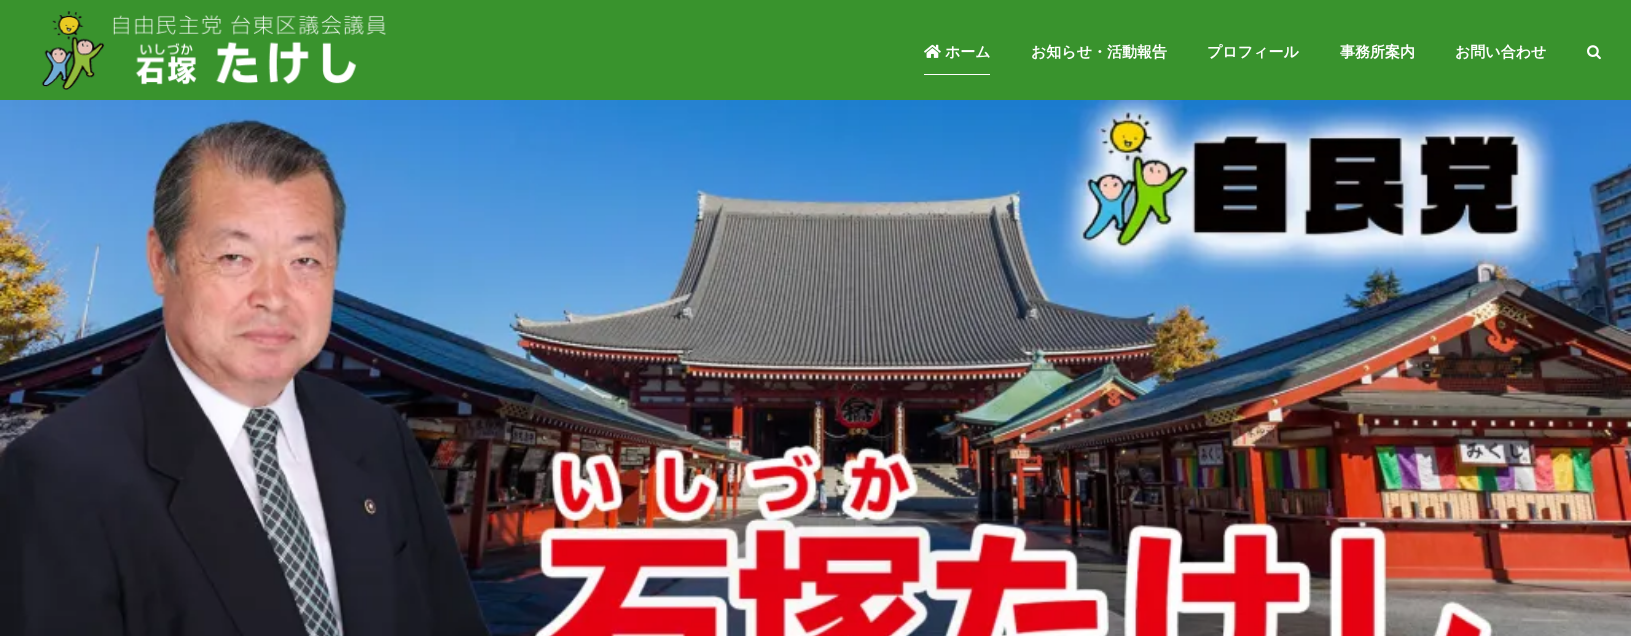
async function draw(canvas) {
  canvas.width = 1631
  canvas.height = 636
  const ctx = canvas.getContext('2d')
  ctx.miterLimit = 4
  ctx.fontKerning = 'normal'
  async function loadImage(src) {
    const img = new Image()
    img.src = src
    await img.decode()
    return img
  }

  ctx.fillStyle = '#39932d'
  ctx.fillRect(0, 0, 1631, 636)
  ctx.drawImage(await loadImage('image0.png'), 41, 11, 345, 79)
  ctx.drawImage(await loadImage('image1.png'), 924, 44, 17, 14)
  ctx.font = 'bold 15px WenQuanYi Zen Hei'
  ctx.fillStyle = '#fff'
  ctx.fillText('ホーム', 945, 57)
  ctx.fillRect(924, 74, 66, 1)
  ctx.fillText('お知らせ・活動報告', 1031, 57)
  ctx.fillText('プロフィール', 1207, 57)
  ctx.fillText('事務所案内', 1340, 57)
  ctx.fillText('お問い合わせ', 1455, 57)
  ctx.drawImage(await loadImage('image2.png'), 1587, 45, 14, 15)
  ctx.drawImage(await loadImage('image3.png'), 0, 100, 1631, 536)
}

draw(document.querySelector('canvas'))
